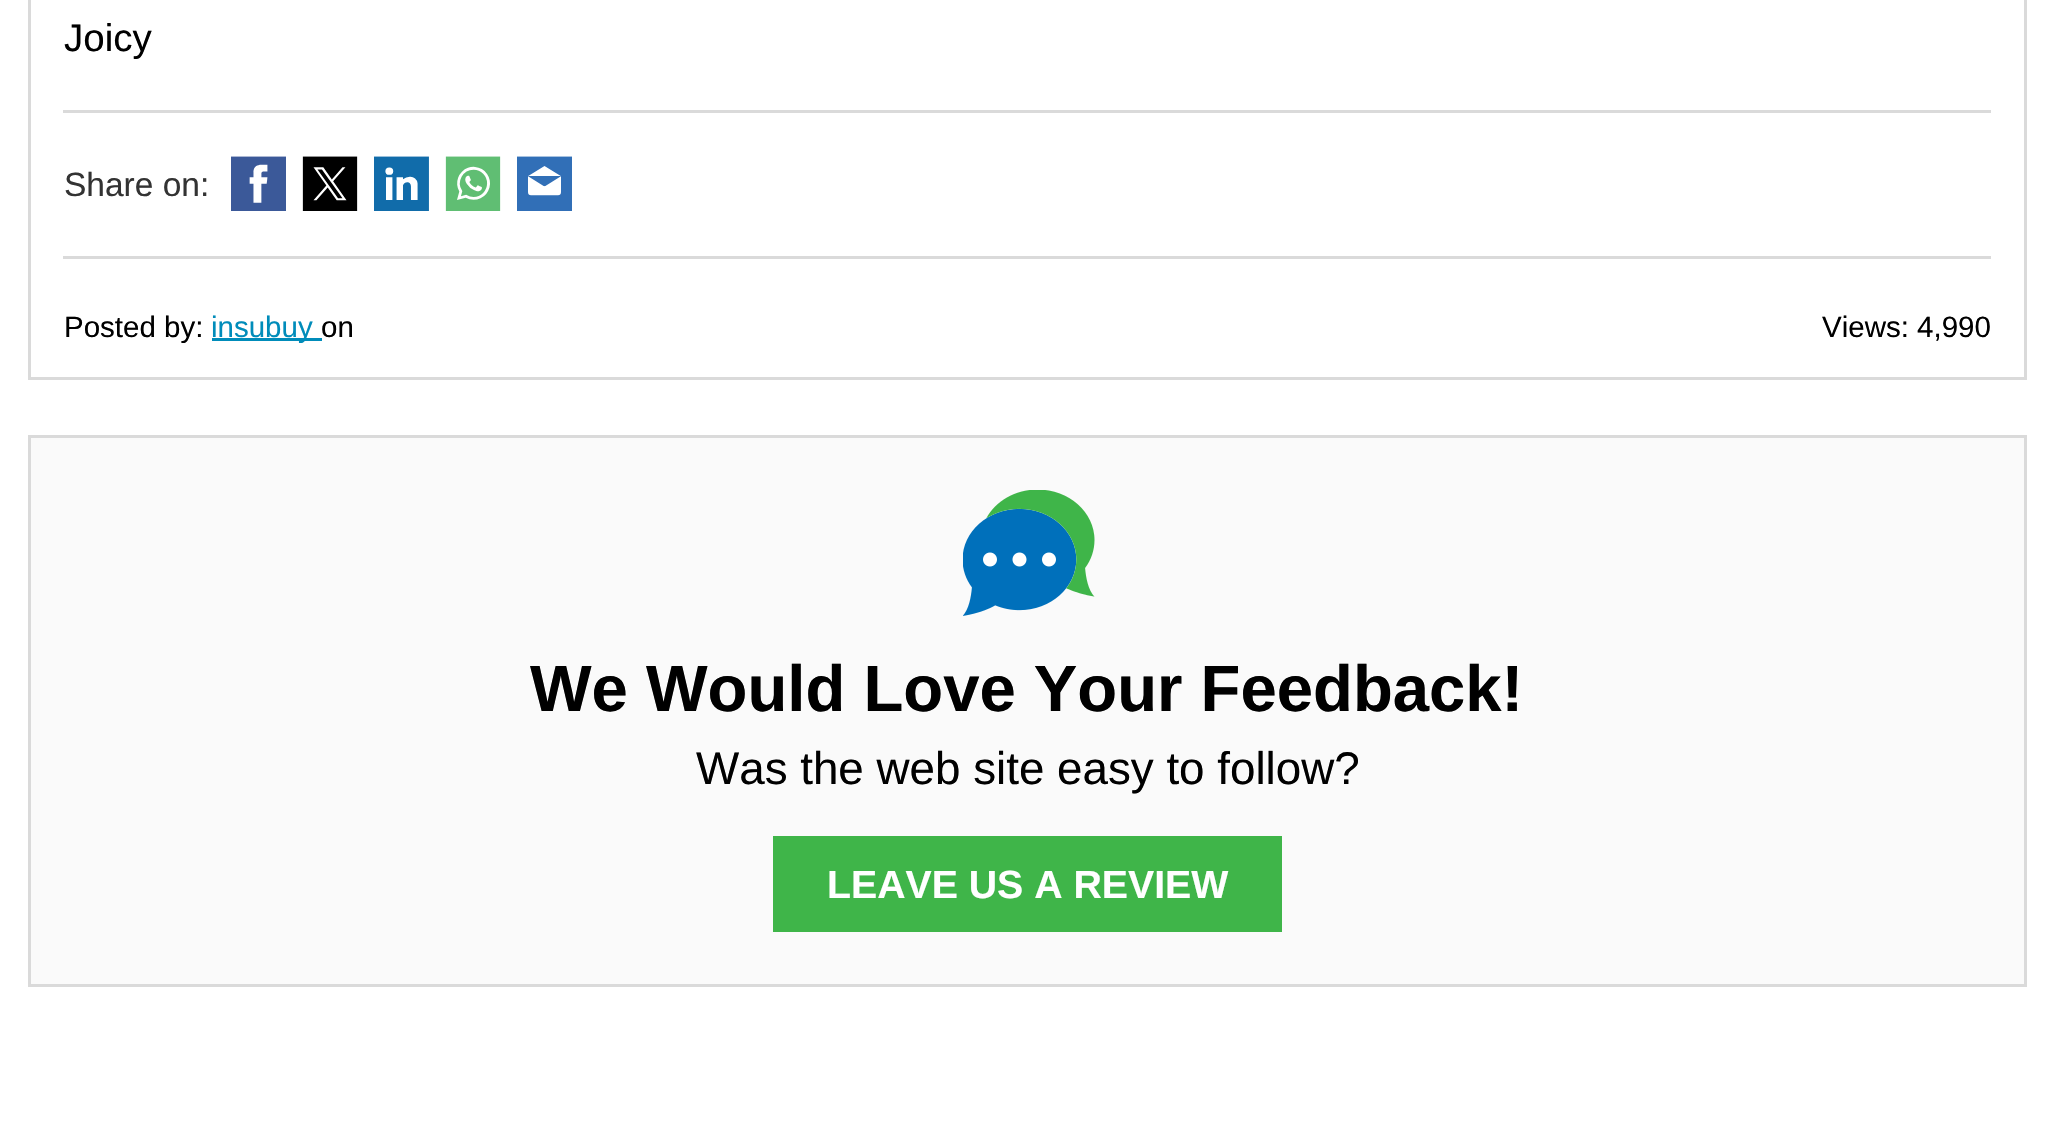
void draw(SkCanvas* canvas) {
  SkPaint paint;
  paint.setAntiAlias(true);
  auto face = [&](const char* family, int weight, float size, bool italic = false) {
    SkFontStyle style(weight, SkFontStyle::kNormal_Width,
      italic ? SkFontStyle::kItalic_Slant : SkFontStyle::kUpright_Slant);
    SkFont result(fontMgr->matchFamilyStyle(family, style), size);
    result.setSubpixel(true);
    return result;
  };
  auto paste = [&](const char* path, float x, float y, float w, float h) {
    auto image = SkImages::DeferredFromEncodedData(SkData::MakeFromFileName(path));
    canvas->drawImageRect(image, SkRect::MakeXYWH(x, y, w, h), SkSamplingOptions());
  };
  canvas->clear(0xffffffff);
  paint.setStroke(true);
  paint.setStrokeWidth(3);
  paint.setColor(0xffdadada);
  canvas->drawRect(SkRect::MakeXYWH(29.5f, -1.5f, 1996, 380), paint);
  paint.setStroke(false);
  canvas->drawRect(SkRect::MakeXYWH(63, 110, 1928, 3), paint);
  paste("img/1.png", 231, 156, 55, 55);
  paste("img/2.png", 302, 156, 56, 55);
  paste("img/3.png", 374, 156, 55, 55);
  paste("img/4.png", 445, 156, 56, 55);
  paste("img/5.png", 517, 156, 55, 55);
  canvas->drawRect(SkRect::MakeXYWH(63, 256, 1928, 3), paint);
  paint.setColor(0xff008cba);
  canvas->drawRect(SkRect::MakeXYWH(212, 338, 110, 3), paint);
  paint.setColor(0xfffafafa);
  canvas->drawRect(SkRect::MakeXYWH(29.5f, 436.5f, 1996, 549), paint);
  paint.setStroke(true);
  paint.setColor(0xffdadada);
  canvas->drawRect(SkRect::MakeXYWH(29.5f, 436.5f, 1996, 549), paint);
  paste("img/6.png", 963, 490, 132, 126);
  paint.setStroke(false);
  paint.setColor(0xff3fb549);
  canvas->drawRect(SkRect::MakeXYWH(773, 836, 509, 96), paint);
  auto f0 = face("Liberation Sans", 400, 38.5f);
  paint.setColor(0xff000000);
  canvas->drawString("Joicy", 64, 51, f0, paint);
  auto f1 = face("Liberation Sans", 400, 33.5f);
  paint.setColor(0xff333333);
  canvas->drawString("Share on:", 64, 196, f1, paint);
  auto f2 = face("Liberation Sans", 400, 29.5f);
  paint.setColor(0xff000000);
  canvas->drawString("Posted by:", 64, 337, f2, paint);
  paint.setColor(0xff008cba);
  canvas->drawString("insubuy", 211, 337, f2, paint);
  paint.setColor(0xff000000);
  canvas->drawString("on", 321, 337, f2, paint);
  canvas->drawString("Views: 4,990", 1822, 337, f2, paint);
  auto f3 = face("Liberation Sans", 700, 65.25f);
  canvas->drawString("We Would Love Your Feedback!", 530, 711, f3, paint);
  auto f4 = face("Liberation Sans", 400, 45.75f);
  canvas->drawString("Was the web site easy to follow?", 696, 784, f4, paint);
  auto f5 = face("Liberation Sans", 700, 39.25f);
  paint.setColor(0xffffffff);
  canvas->drawString("LEAVE US A REVIEW", 827, 898, f5, paint);
}
